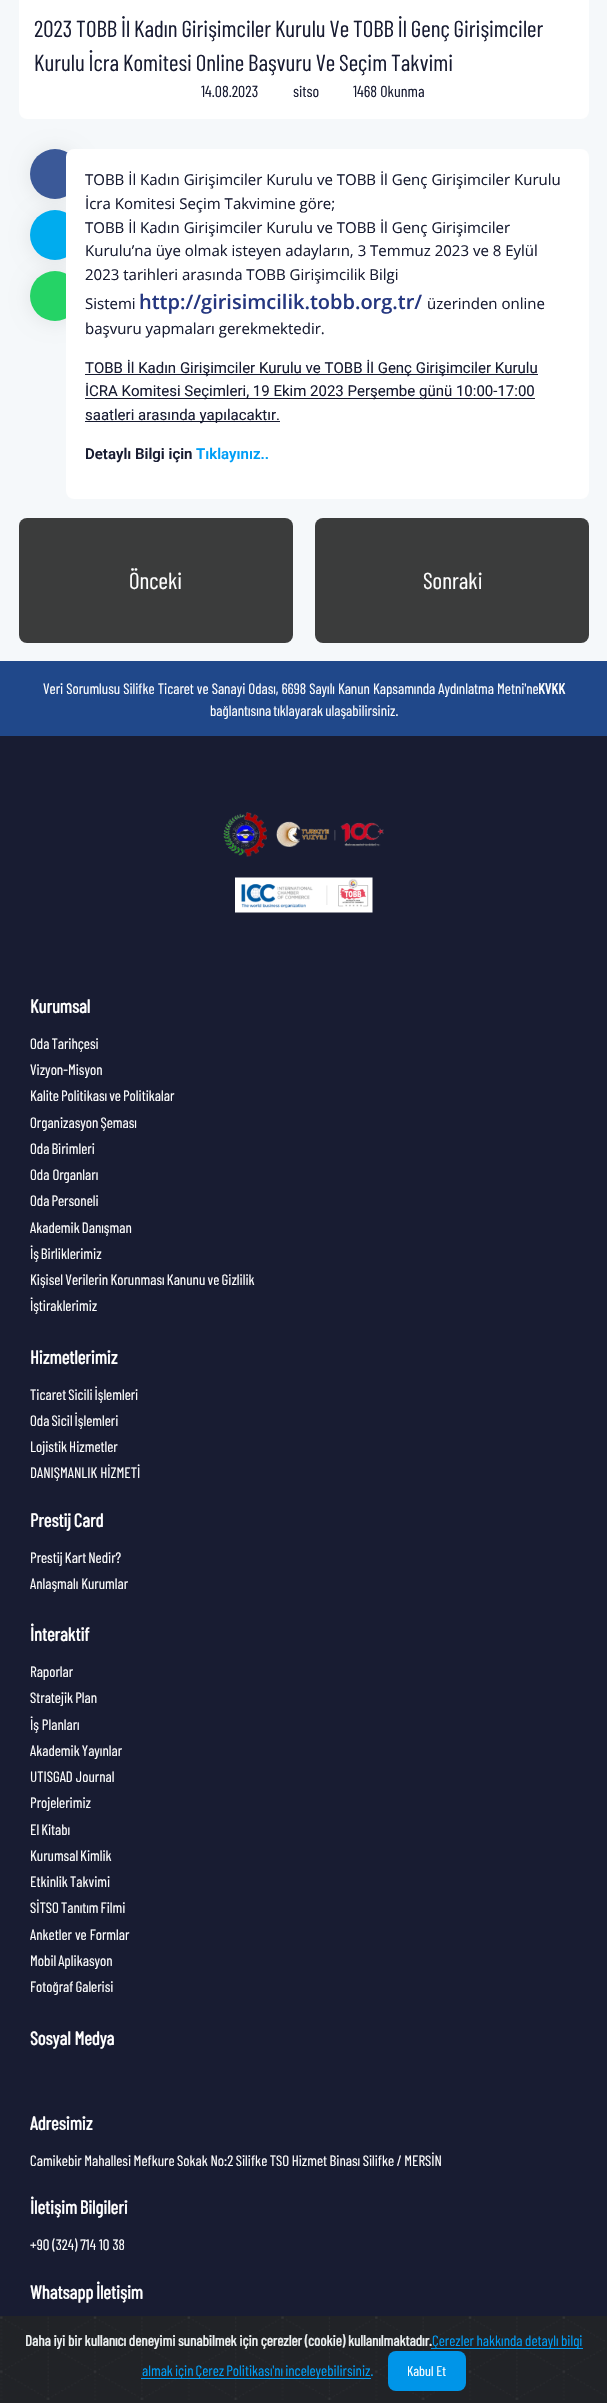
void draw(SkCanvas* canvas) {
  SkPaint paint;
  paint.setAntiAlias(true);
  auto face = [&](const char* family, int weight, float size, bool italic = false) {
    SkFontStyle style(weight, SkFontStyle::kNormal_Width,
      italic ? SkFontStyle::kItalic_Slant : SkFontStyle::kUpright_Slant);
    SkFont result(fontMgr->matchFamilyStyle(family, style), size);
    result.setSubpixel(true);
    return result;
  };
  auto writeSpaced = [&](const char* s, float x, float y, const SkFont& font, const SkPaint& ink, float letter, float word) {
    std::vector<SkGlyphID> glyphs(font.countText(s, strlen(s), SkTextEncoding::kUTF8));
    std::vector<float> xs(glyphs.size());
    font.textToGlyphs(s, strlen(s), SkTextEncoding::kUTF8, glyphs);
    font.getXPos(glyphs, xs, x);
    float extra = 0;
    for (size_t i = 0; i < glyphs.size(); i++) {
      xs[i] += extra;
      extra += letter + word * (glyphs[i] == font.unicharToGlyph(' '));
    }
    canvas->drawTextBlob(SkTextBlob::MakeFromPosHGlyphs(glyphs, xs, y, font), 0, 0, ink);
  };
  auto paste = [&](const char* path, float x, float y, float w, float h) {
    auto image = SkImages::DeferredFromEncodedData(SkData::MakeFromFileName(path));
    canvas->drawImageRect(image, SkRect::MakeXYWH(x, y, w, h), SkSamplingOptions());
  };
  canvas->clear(0xfff5f8fa);
  paint.setColor(0xffffffff);
  canvas->drawRoundRect(SkRect::MakeXYWH(19, -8, 570, 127), 8, 8, paint);
  paint.setColor(0x0d000000);
  paint.setMaskFilter(SkMaskFilter::MakeBlur(kNormal_SkBlurStyle, 7.5f));
  canvas->drawRoundRect(SkRect::MakeXYWH(26, 146, 58, 58), 29, 29, paint);
  paint.setMaskFilter(nullptr);
  paint.setColor(0xff3b5998);
  canvas->drawCircle(55, 174, 25, paint);
  paint.setColor(0x0d000000);
  paint.setMaskFilter(SkMaskFilter::MakeBlur(kNormal_SkBlurStyle, 7.5f));
  canvas->drawRoundRect(SkRect::MakeXYWH(26, 208, 58, 57), 28.5f, 28.5f, paint);
  paint.setMaskFilter(nullptr);
  paint.setColor(0xff00acee);
  canvas->drawCircle(55, 235, 25, paint);
  paint.setColor(0x0d000000);
  paint.setMaskFilter(SkMaskFilter::MakeBlur(kNormal_SkBlurStyle, 7.5f));
  canvas->drawRoundRect(SkRect::MakeXYWH(26, 269, 58, 57), 28.5f, 28.5f, paint);
  paint.setMaskFilter(nullptr);
  paint.setColor(0xff25d366);
  canvas->drawCircle(55, 296, 25, paint);
  paint.setColor(0xffffffff);
  canvas->drawRoundRect(SkRect::MakeXYWH(66, 149, 523, 350), 8, 8, paint);
  {
    const struct { float x, y, w, h; SkColor color; } items[] = {
      {85, 374, 453, 1, 0xff181c32},
      {85, 398, 450, 1, 0xff181c32},
      {85, 421, 195, 1, 0xff181c32},
    };
    for (auto [x, y, w, h, color] : items) {
      paint.setColor(color);
      canvas->drawRect(SkRect::MakeXYWH(x, y, w, h), paint);
    }
  }
  paint.setColor(0xff3b3c3c);
  canvas->drawRoundRect(SkRect::MakeXYWH(19, 518, 274, 125), 8, 8, paint);
  canvas->drawRoundRect(SkRect::MakeXYWH(315, 518, 274, 125), 8, 8, paint);
  paint.setColor(0xff20488a);
  canvas->drawRect(SkRect::MakeXYWH(0, 661, 607, 75), paint);
  paint.setColor(0xff181c32);
  canvas->drawRect(SkRect::MakeXYWH(0, 736, 607, 1580), paint);
  paste("img/1.png", 223, 812, 161, 45);
  paste("img/2.png", 235, 877, 138, 36);
  paint.setColor(0xff212327);
  canvas->drawRect(SkRect::MakeXYWH(0, 2316, 607, 87), paint);
  paste("img/3.png", 0, 2316, 605, 84);
  paint.setColor(0xff009ef7);
  canvas->drawRect(SkRect::MakeXYWH(141, 2378, 230, 1), paint);
  paint.setColor(0xff0095e8);
  canvas->drawRoundRect(SkRect::MakeXYWH(388, 2351, 78, 40), 8, 8, paint);
  auto f0 = face("Barlow Condensed", 400, 23.1f);
  paint.setColor(0xff181c32);
  writeSpaced("2023 TOBB İl Kadın Girişimciler Kurulu Ve TOBB İl Genç Girişimciler", 34, 37, f0, paint, 0, -0.75f);
  writeSpaced("Kurulu İcra Komitesi Online Başvuru Ve Seçim Takvimi", 34, 71, f0, paint, 0, -0.75f);
  auto f1 = face("Barlow Condensed", 400, 16);
  {
    const struct { const char* s; float x, y; } items[] = {
      {"14.08.2023", 201, 97},
      {"sitso", 293, 97},
      {"1468 Okunma", 353, 97},
    };
    for (auto [s, x, y] : items) {
      canvas->drawString(s, x, y, f1, paint);
    }
  }
  auto f2 = face("Open Sans", 400, 15);
  {
    const struct { const char* s; float x, y; } items[] = {
      {"TOBB İl Kadın Girişimciler Kurulu ve TOBB İl Genç Girişimciler Kurulu", 85, 185},
      {"İcra Komitesi Seçim Takvimine göre;", 85, 209},
      {"TOBB İl Kadın Girişimciler Kurulu ve TOBB İl Genç Girişimciler", 85, 233},
      {"Kurulu’na üye olmak isteyen adayların, 3 Temmuz 2023 ve 8 Eylül", 85, 256},
      {"2023 tarihleri arasında TOBB Girişimcilik Bilgi", 85, 280},
      {"Sistemi", 85, 309},
    };
    for (auto [s, x, y] : items) {
      canvas->drawString(s, x, y, f2, paint);
    }
  }
  auto f3 = face("Open Sans", 600, 20);
  paint.setColor(0xff253780);
  canvas->drawString("http://girisimcilik.tobb.org.tr/", 139, 309, f3, paint);
  paint.setColor(0xff181c32);
  canvas->drawString("üzerinden online", 427, 309, f2, paint);
  canvas->drawString("başvuru yapmaları gerekmektedir.", 85, 334, f2, paint);
  auto f4 = face("Roboto", 400, 15);
  {
    const struct { const char* s; float x, y; } items[] = {
      {"TOBB İl Kadın Girişimciler Kurulu ve TOBB İl Genç Girişimciler Kurulu", 85, 373},
      {"İCRA Komitesi Seçimleri, 19 Ekim 2023 Perşembe günü 10:00-17:00", 85, 396},
      {"saatleri arasında yapılacaktır.", 85, 420},
    };
    for (auto [s, x, y] : items) {
      canvas->drawString(s, x, y, f4, paint);
    }
  }
  auto f5 = face("Roboto", 600, 15);
  canvas->drawString("Detaylı Bilgi için", 85, 459, f5, paint);
  paint.setColor(0xff009ef7);
  canvas->drawString("Tıklayınız..", 196, 459, f5, paint);
  paint.setColor(0xffffffff);
  canvas->drawString("Önceki", 129, 589, f0, paint);
  canvas->drawString("Sonraki", 423, 589, f0, paint);
  auto f6 = face("Barlow Condensed", 400, 15);
  canvas->drawString("Veri Sorumlusu Silifke Ticaret ve Sanayi Odası, 6698 Sayılı Kanun Kapsamında Aydınlatma Metni'ne", 43, 694, f6, paint);
  auto f7 = face("Barlow Condensed", 700, 15);
  canvas->drawString("KVKK", 538, 694, f7, paint);
  writeSpaced("bağlantısına tıklayarak ulaşabilirsiniz.", 210, 716, f6, paint, 0, -1);
  auto f8 = face("Barlow Condensed", 700, 18.75f);
  canvas->drawString("Kurumsal", 30, 1013, f8, paint);
  writeSpaced("Oda Tarihçesi", 30, 1049, f6, paint, 0, -1);
  canvas->drawString("Vizyon-Misyon", 30, 1075, f6, paint);
  {
    const struct { const char* s; float x, y; } items[] = {
      {"Kalite Politikası ve Politikalar", 30, 1101},
      {"Organizasyon Şeması", 30, 1128},
      {"Oda Birimleri", 30, 1154},
    };
    for (auto [s, x, y] : items) {
      writeSpaced(s, x, y, f6, paint, 0, -1);
    }
  }
  canvas->drawString("Oda Organları", 30, 1180, f6, paint);
  {
    const struct { const char* s; float x, y; } items[] = {
      {"Oda Personeli", 30, 1206},
      {"Akademik Danışman", 30, 1233},
      {"İş Birliklerimiz", 30, 1259},
    };
    for (auto [s, x, y] : items) {
      writeSpaced(s, x, y, f6, paint, 0, -1);
    }
  }
  writeSpaced("Kişisel Verilerin Korunması Kanunu ve Gizlilik", 30, 1285, f6, paint, 0, -0.75f);
  canvas->drawString("İştiraklerimiz", 30, 1311, f6, paint);
  canvas->drawString("Hizmetlerimiz", 30, 1364, f8, paint);
  {
    const struct { const char* s; float x, y; } items[] = {
      {"Ticaret Sicili İşlemleri", 30, 1400},
      {"Oda Sicil İşlemleri", 30, 1426},
      {"Lojistik Hizmetler", 30, 1452},
    };
    for (auto [s, x, y] : items) {
      writeSpaced(s, x, y, f6, paint, 0, -1);
    }
  }
  canvas->drawString("DANIŞMANLIK HİZMETİ", 30, 1478, f6, paint);
  writeSpaced("Prestij Card", 30, 1527, f8, paint, 0, -1);
  writeSpaced("Prestij Kart Nedir?", 30, 1563, f6, paint, 0, -1);
  canvas->drawString("Anlaşmalı Kurumlar", 30, 1589, f6, paint);
  canvas->drawString("İnteraktif", 30, 1641, f8, paint);
  canvas->drawString("Raporlar", 30, 1677, f6, paint);
  writeSpaced("Stratejik Plan", 30, 1703, f6, paint, 0, -1);
  canvas->drawString("İş Planları", 30, 1730, f6, paint);
  writeSpaced("Akademik Yayınlar", 30, 1756, f6, paint, 0, -1);
  canvas->drawString("UTISGAD Journal", 30, 1782, f6, paint);
  canvas->drawString("Projelerimiz", 30, 1808, f6, paint);
  {
    const struct { const char* s; float x, y; } items[] = {
      {"El Kitabı", 30, 1835},
      {"Kurumsal Kimlik", 30, 1861},
      {"Etkinlik Takvimi", 30, 1887},
      {"SİTSO Tanıtım Filmi", 30, 1913},
    };
    for (auto [s, x, y] : items) {
      writeSpaced(s, x, y, f6, paint, 0, -1);
    }
  }
  canvas->drawString("Anketler ve Formlar", 30, 1940, f6, paint);
  writeSpaced("Mobil Aplikasyon", 30, 1966, f6, paint, 0, -1);
  writeSpaced("Fotoğraf Galerisi", 30, 1992, f6, paint, 0, -1);
  canvas->drawString("Sosyal Medya", 30, 2045, f8, paint);
  canvas->drawString("Adresimiz", 30, 2130, f8, paint);
  writeSpaced("Camikebir Mahallesi Mefkure Sokak No:2 Silifke TSO Hizmet Binası Silifke / MERSİN", 30, 2166, f6, paint, 0, -0.5f);
  writeSpaced("İletişim Bilgileri", 30, 2214, f8, paint, 0, -1);
  canvas->drawString("+90 (324) 714 10 38", 30, 2250, f6, paint);
  writeSpaced("Whatsapp İletişim", 30, 2299, f8, paint, 0, -1);
  paint.setColor(0xffecf0f1);
  writeSpaced("Daha iyi bir kullanıcı deneyimi sunabilmek için çerezler (cookie) kullanılmaktadır.", 25, 2346, f7, paint, 0, -0.25f);
  paint.setColor(0xff009ef7);
  canvas->drawRect(SkRect::MakeXYWH(431, 2348, 152, 1), paint);
  writeSpaced("Çerezler hakkında detaylı bilgi", 432, 2346, f6, paint, 0, -0.5f);
  writeSpaced("almak için Çerez Politikası'nı inceleyebilirsiniz.", 142, 2376, f6, paint, 0, -1);
  auto f9 = face("Barlow Condensed", 400, 14);
  paint.setColor(0xffffffff);
  canvas->drawString("Kabul Et", 407, 2376, f9, paint);
}
